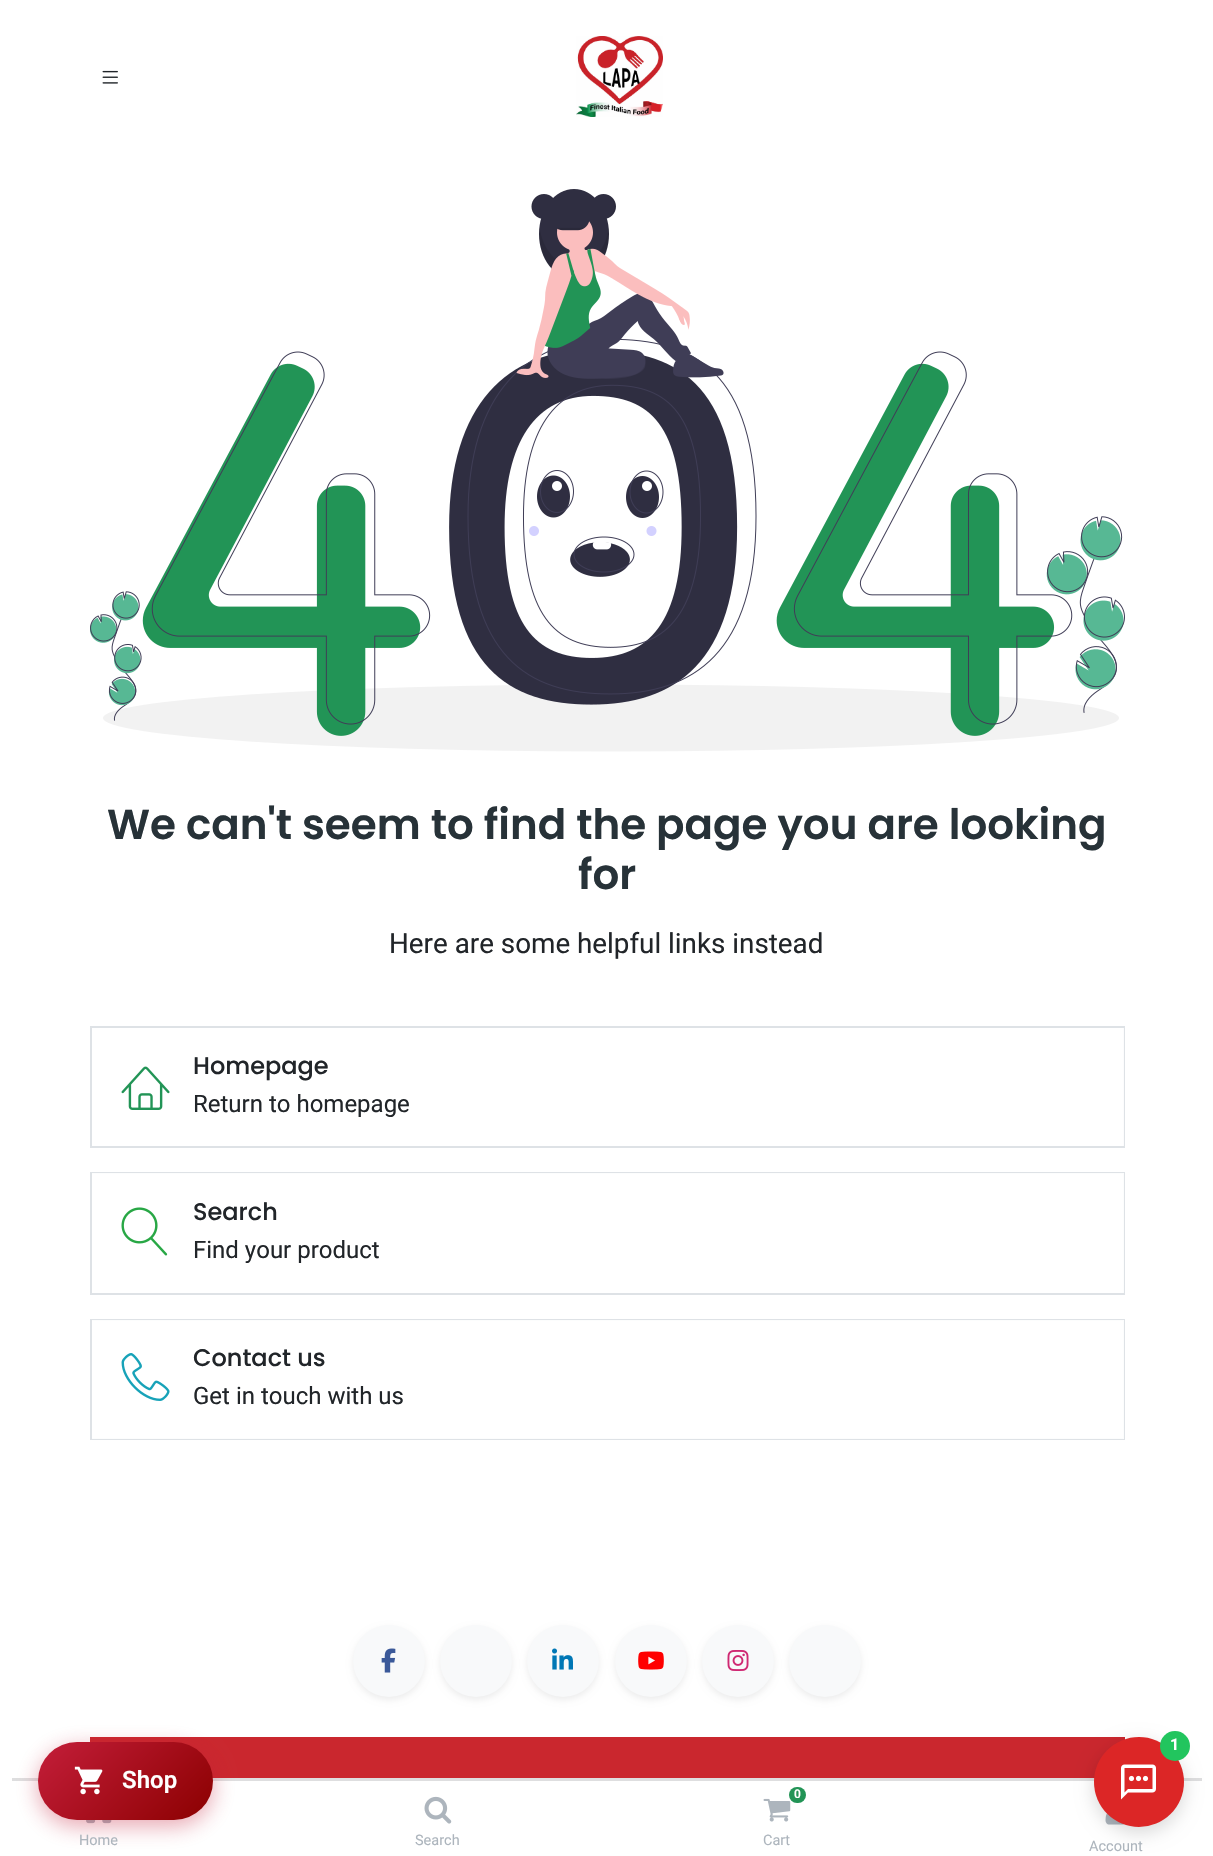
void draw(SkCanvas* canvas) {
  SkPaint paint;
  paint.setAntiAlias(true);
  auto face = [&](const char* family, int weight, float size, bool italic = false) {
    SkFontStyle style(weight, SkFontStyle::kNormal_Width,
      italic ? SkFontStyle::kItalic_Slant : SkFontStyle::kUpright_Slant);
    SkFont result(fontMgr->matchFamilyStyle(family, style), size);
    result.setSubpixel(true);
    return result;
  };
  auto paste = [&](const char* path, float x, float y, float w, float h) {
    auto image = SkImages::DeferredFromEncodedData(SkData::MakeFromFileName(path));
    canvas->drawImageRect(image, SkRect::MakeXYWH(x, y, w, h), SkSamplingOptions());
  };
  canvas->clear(0xffffffff);
  paste("img/1.png", 102, 70, 16, 14);
  paste("img/2.png", 576, 36, 87, 81);
  paste("img/3.png", 90, 189, 1035, 563);
  paint.setStroke(true);
  paint.setStrokeWidth(2);
  paint.setColor(0xffdee2e6);
  canvas->drawRect(SkRect::MakeXYWH(91, 1027, 1033, 120), paint);
  paint.setStroke(false);
  paint.setColor(0xe6ffffff);
  canvas->drawRect(SkRect::MakeXYWH(1123, 1028, 1, 118), paint);
  paste("img/4.png", 121, 1066, 49, 44);
  paint.setStroke(true);
  paint.setColor(0xffdee2e6);
  canvas->drawRect(SkRect::MakeXYWH(91, 1173, 1033, 121), paint);
  paint.setStroke(false);
  paint.setColor(0xe6ffffff);
  canvas->drawRect(SkRect::MakeXYWH(92, 1173, 1032, 120), paint);
  paste("img/5.png", 121, 1207, 47, 49);
  paint.setStroke(true);
  paint.setColor(0xffdee2e6);
  canvas->drawRect(SkRect::MakeXYWH(91, 1320, 1033, 119), paint);
  paint.setStroke(false);
  paint.setColor(0xe6ffffff);
  canvas->drawRect(SkRect::MakeXYWH(92, 1320, 1032, 119), paint);
  paste("img/6.png", 121, 1353, 49, 48);
  paint.setColor(0x12000000);
  paint.setMaskFilter(SkMaskFilter::MakeBlur(kNormal_SkBlurStyle, 3));
  canvas->drawRoundRect(SkRect::MakeXYWH(353, 1628, 72, 72), 36, 36, paint);
  paint.setMaskFilter(nullptr);
  paint.setColor(0xfff8f9fa);
  canvas->drawCircle(389, 1661, 36, paint);
  paste("img/7.png", 381, 1648, 15, 25);
  paint.setColor(0x12000000);
  paint.setMaskFilter(SkMaskFilter::MakeBlur(kNormal_SkBlurStyle, 3));
  canvas->drawRoundRect(SkRect::MakeXYWH(440, 1628, 72, 72), 36, 36, paint);
  paint.setMaskFilter(nullptr);
  paint.setColor(0xfff8f9fa);
  canvas->drawCircle(476, 1661, 36, paint);
  paint.setColor(0x12000000);
  paint.setMaskFilter(SkMaskFilter::MakeBlur(kNormal_SkBlurStyle, 3));
  canvas->drawRoundRect(SkRect::MakeXYWH(527, 1628, 72, 72), 36, 36, paint);
  paint.setMaskFilter(nullptr);
  paint.setColor(0xfff8f9fa);
  canvas->drawCircle(563, 1661, 36, paint);
  paste("img/8.png", 552, 1648, 21, 22);
  paint.setColor(0x12000000);
  paint.setMaskFilter(SkMaskFilter::MakeBlur(kNormal_SkBlurStyle, 3));
  canvas->drawRoundRect(SkRect::MakeXYWH(615, 1628, 72, 72), 36, 36, paint);
  paint.setMaskFilter(nullptr);
  paint.setColor(0xfff8f9fa);
  canvas->drawCircle(651, 1661, 36, paint);
  paste("img/9.png", 638, 1651, 26, 19);
  paint.setColor(0x12000000);
  paint.setMaskFilter(SkMaskFilter::MakeBlur(kNormal_SkBlurStyle, 3));
  canvas->drawRoundRect(SkRect::MakeXYWH(702, 1628, 72, 72), 36, 36, paint);
  paint.setMaskFilter(nullptr);
  paint.setColor(0xfff8f9fa);
  canvas->drawCircle(738, 1661, 36, paint);
  paste("img/10.png", 727, 1650, 22, 21);
  paint.setColor(0x12000000);
  paint.setMaskFilter(SkMaskFilter::MakeBlur(kNormal_SkBlurStyle, 3));
  canvas->drawRoundRect(SkRect::MakeXYWH(789, 1628, 72, 72), 36, 36, paint);
  paint.setMaskFilter(nullptr);
  paint.setColor(0xfff8f9fa);
  canvas->drawCircle(825, 1661, 36, paint);
  paint.setColor(0xffca272e);
  canvas->drawRect(SkRect::MakeXYWH(90, 1737, 1035, 41), paint);
  paint.setColor(0xffdededf);
  canvas->drawRect(SkRect::MakeXYWH(12, 1778, 1190, 3), paint);
  paste("img/11.png", 86, 1820, 26, 4);
  paste("img/12.png", 424, 1796, 28, 28);
  paste("img/13.png", 763, 1798, 28, 24);
  paint.setColor(0xff229456);
  canvas->drawRoundRect(SkRect::MakeXYWH(789, 1787, 17, 16), 8, 8, paint);
  paste("img/14.png", 1105, 1813, 20, 12);
  paint.setColor(0x26000000);
  paint.setMaskFilter(SkMaskFilter::MakeBlur(kNormal_SkBlurStyle, 9));
  canvas->drawRoundRect(SkRect::MakeXYWH(1094, 1743, 90, 90), 45, 45, paint);
  paint.setMaskFilter(nullptr);
  paint.setColor(0xffdc2626);
  canvas->drawCircle(1139, 1782, 45, paint);
  paint.setColor(0xff22c55e);
  canvas->drawCircle(1175, 1746, 15, paint);
  paste("img/15.png", 1121, 1764, 35, 36);
  paint.setColor(0x66c41e3a);
  paint.setMaskFilter(SkMaskFilter::MakeBlur(kNormal_SkBlurStyle, 11));
  canvas->drawRoundRect(SkRect::MakeXYWH(38, 1748, 175, 78), 39, 39, paint);
  paint.setMaskFilter(nullptr);
  {
    const SkColor colors[] = {0xffc41e3a, 0xff8b0000};
    const float stops[] = {0, 1};
    const SkPoint ends[] = {{62, 1717}, {189, 1844}};
    paint.setShader(SkGradientShader::MakeLinear(ends, colors, stops, 2, SkTileMode::kClamp));
    paint.setAlpha(255);
  }
  canvas->drawRoundRect(SkRect::MakeXYWH(38, 1742, 175, 78), 39, 39, paint);
  paste("img/16.png", 74, 1766, 29, 29);
  auto f0 = face("Poppins", 600, 42);
  paint.setShader(nullptr);
  paint.setColor(0xff273238);
  canvas->drawString("We can't seem to find the page you are looking", 107, 839, f0, paint);
  canvas->drawString("for", 578, 889, f0, paint);
  auto f1 = face("Roboto", 400, 27.8f);
  paint.setColor(0xff212529);
  canvas->drawString("Here are some helpful links instead", 389, 953, f1, paint);
  auto f2 = face("Poppins", 500, 24);
  canvas->drawString("Homepage", 193, 1074, f2, paint);
  auto f3 = face("Roboto", 400, 24);
  canvas->drawString("Return to homepage", 193, 1112, f3, paint);
  canvas->drawString("Search", 193, 1220, f2, paint);
  canvas->drawString("Find your product", 193, 1258, f3, paint);
  canvas->drawString("Contact us", 193, 1366, f2, paint);
  canvas->drawString("Get in touch with us", 193, 1404, f3, paint);
  auto f4 = face("Roboto", 400, 14.5f);
  paint.setColor(0xffadb5bd);
  canvas->drawString("Home", 79, 1845, f4, paint);
  canvas->drawString("Search", 415, 1845, f4, paint);
  auto f5 = face("Roboto", 600, 12);
  paint.setColor(0xffffffff);
  canvas->drawString("0", 794, 1798, f5, paint);
  paint.setColor(0xffadb5bd);
  canvas->drawString("Cart", 763, 1845, f4, paint);
  canvas->drawString("Account", 1089, 1851, f4, paint);
  auto f6 = face("Roboto", 700, 16);
  paint.setColor(0xffffffff);
  canvas->drawString("1", 1170, 1750, f6, paint);
  auto f7 = face("Roboto", 600, 24);
  canvas->drawString("Shop", 122, 1788, f7, paint);
}
